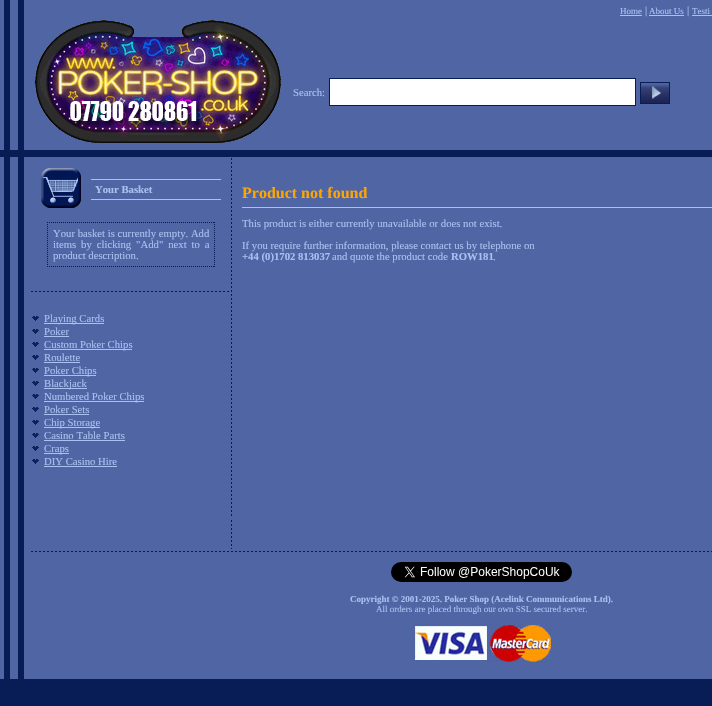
void draw(SkCanvas* canvas) {
  SkPaint paint;
  paint.setAntiAlias(true);
  auto face = [&](const char* family, int weight, float size, bool italic = false) {
    SkFontStyle style(weight, SkFontStyle::kNormal_Width,
      italic ? SkFontStyle::kItalic_Slant : SkFontStyle::kUpright_Slant);
    SkFont result(fontMgr->matchFamilyStyle(family, style), size);
    result.setSubpixel(true);
    return result;
  };
  auto writeSpaced = [&](const char* s, float x, float y, const SkFont& font, const SkPaint& ink, float letter, float word) {
    std::vector<SkGlyphID> glyphs(font.countText(s, strlen(s), SkTextEncoding::kUTF8));
    std::vector<float> xs(glyphs.size());
    font.textToGlyphs(s, strlen(s), SkTextEncoding::kUTF8, glyphs);
    font.getXPos(glyphs, xs, x);
    float extra = 0;
    for (size_t i = 0; i < glyphs.size(); i++) {
      xs[i] += extra;
      extra += letter + word * (glyphs[i] == font.unicharToGlyph(' '));
    }
    canvas->drawTextBlob(SkTextBlob::MakeFromPosHGlyphs(glyphs, xs, y, font), 0, 0, ink);
  };
  auto paste = [&](const char* path, float x, float y, float w, float h) {
    auto image = SkImages::DeferredFromEncodedData(SkData::MakeFromFileName(path));
    canvas->drawImageRect(image, SkRect::MakeXYWH(x, y, w, h), SkSamplingOptions());
  };
  auto shape = [&](const char* data, bool evenOdd = false) {
    SkPath result = *SkParsePath::FromSVGString(data);
    if (evenOdd) result.setFillType(SkPathFillType::kEvenOdd);
    return result;
  };
  canvas->clear(0xff081c56);
  paint.setColor(0xff4f65a4);
  canvas->drawRect(SkRect::MakeXYWH(0, 0, 712, 679), paint);
  paste("img/1.png", 4, 0, 20, 150);
  {
    const struct { float x, y, w, h; SkColor color; } items[] = {
      {620, 15, 22, 1, 0xffa8c1f0},
      {649, 15, 35, 1, 0xffa8c1f0},
      {692, 15, 20, 1, 0xffa8c1f0},
    };
    for (auto [x, y, w, h, color] : items) {
      paint.setColor(color);
      canvas->drawRect(SkRect::MakeXYWH(x, y, w, h), paint);
    }
  }
  paste("img/2.png", 35, 20, 246, 123);
  paint.setColor(0xffffffff);
  canvas->drawRect(SkRect::MakeXYWH(329.5f, 78.5f, 306, 27), paint);
  paint.setStroke(true);
  paint.setStrokeWidth(1);
  paint.setColor(0xff081c56);
  canvas->drawRect(SkRect::MakeXYWH(329.5f, 78.5f, 306, 27), paint);
  canvas->drawRect(SkRect::MakeXYWH(640.5f, 82.5f, 29, 21), paint);
  paste("img/3.png", 641, 84, 28, 19);
  paint.setStroke(false);
  canvas->drawRect(SkRect::MakeXYWH(0, 150, 712, 7), paint);
  paste("img/4.png", 4, 157, 20, 362);
  paste("img/5.png", 41, 168, 40, 40);
  paint.setColor(0xffa8c1f1);
  canvas->drawRect(SkRect::MakeXYWH(91, 179, 130, 1), paint);
  canvas->drawRect(SkRect::MakeXYWH(91, 199, 130, 1), paint);
  paint.setStroke(true);
  paint.setColor(0xff081c56);
  paint.setPathEffect(SkDashPathEffect::Make({{1, 1}}, 0));
  canvas->drawPath(shape("M47 222.5H215"), paint);
  paint.setPathEffect(nullptr);
  paint.setPathEffect(SkDashPathEffect::Make({{1, 1}}, 0));
  canvas->drawPath(shape("M214.5 222V267"), paint);
  paint.setPathEffect(nullptr);
  paint.setPathEffect(SkDashPathEffect::Make({{1, 1}}, 0));
  canvas->drawPath(shape("M47 266.5H215"), paint);
  paint.setPathEffect(nullptr);
  paint.setPathEffect(SkDashPathEffect::Make({{1, 1}}, 0));
  canvas->drawPath(shape("M47.5 222V267"), paint);
  paint.setPathEffect(nullptr);
  paste("img/6.png", 31, 291, 198, 1);
  paste("img/7.png", 32, 316, 7, 5);
  paint.setStroke(false);
  paint.setColor(0xffa8c1f0);
  canvas->drawRect(SkRect::MakeXYWH(44, 323, 60, 1), paint);
  paste("img/7.png", 32, 329, 7, 5);
  canvas->drawRect(SkRect::MakeXYWH(44, 336, 25, 1), paint);
  paste("img/7.png", 32, 342, 7, 5);
  canvas->drawRect(SkRect::MakeXYWH(44, 349, 88, 1), paint);
  paste("img/7.png", 32, 355, 7, 5);
  canvas->drawRect(SkRect::MakeXYWH(44, 362, 36, 1), paint);
  paste("img/7.png", 32, 368, 7, 5);
  canvas->drawRect(SkRect::MakeXYWH(44, 375, 52, 1), paint);
  paste("img/7.png", 32, 381, 7, 5);
  canvas->drawRect(SkRect::MakeXYWH(44, 388, 43, 1), paint);
  paste("img/7.png", 32, 394, 7, 5);
  canvas->drawRect(SkRect::MakeXYWH(44, 401, 100, 1), paint);
  paste("img/7.png", 32, 407, 7, 5);
  canvas->drawRect(SkRect::MakeXYWH(44, 414, 45, 1), paint);
  paste("img/7.png", 32, 420, 7, 5);
  canvas->drawRect(SkRect::MakeXYWH(44, 427, 56, 1), paint);
  paste("img/7.png", 32, 433, 7, 5);
  canvas->drawRect(SkRect::MakeXYWH(44, 440, 81, 1), paint);
  paste("img/7.png", 32, 446, 7, 5);
  canvas->drawRect(SkRect::MakeXYWH(44, 453, 25, 1), paint);
  paste("img/7.png", 32, 459, 7, 5);
  canvas->drawRect(SkRect::MakeXYWH(44, 466, 73, 1), paint);
  paste("img/8.png", 231, 158, 1, 358);
  canvas->drawRect(SkRect::MakeXYWH(242, 207, 470, 1), paint);
  paste("img/9.png", 4, 519, 20, 31);
  paste("img/10.png", 231, 520, 1, 29);
  paste("img/11.png", 4, 550, 20, 129);
  paste("img/12.png", 31, 551, 681, 1);
  paste("img/13.png", 391, 562, 181, 20);
  paste("img/14.png", 412, 624, 139, 38);
  auto f0 = face("Liberation Serif", 400, 9);
  canvas->drawString("Home", 620, 14, f0, paint);
  auto f1 = face("Liberation Serif", 400, 10.7f);
  canvas->drawString("|", 645, 14, f1, paint);
  canvas->drawString("About Us", 649, 14, f0, paint);
  canvas->drawString("|", 687, 14, f1, paint);
  canvas->drawString("Testi", 692, 14, f0, paint);
  canvas->drawString("Search:", 293, 96, f1, paint);
  auto f2 = face("Liberation Serif", 700, 10.7f);
  canvas->drawString("Your Basket", 95, 193, f2, paint);
  canvas->drawString("Your basket is currently empty. Add", 53, 237, f1, paint);
  writeSpaced("items by clicking \"Add\" next to a", 53, 248, f1, paint, 0, 2.25f);
  {
    const struct { const char* s; float x, y; } items[] = {
      {"product description.", 53, 259},
      {"Playing Cards", 44, 322},
      {"Poker", 44, 335},
      {"Custom Poker Chips", 44, 348},
      {"Roulette", 44, 361},
      {"Poker Chips", 44, 374},
      {"Blackjack", 44, 387},
      {"Numbered Poker Chips", 44, 400},
      {"Poker Sets", 44, 413},
      {"Chip Storage", 44, 426},
      {"Casino Table Parts", 44, 439},
      {"Craps", 44, 452},
      {"DIY Casino Hire", 44, 465},
    };
    for (auto [s, x, y] : items) {
      canvas->drawString(s, x, y, f1, paint);
    }
  }
  auto f3 = face("Liberation Serif", 700, 16);
  paint.setColor(0xffffa500);
  canvas->drawString("Product not found", 242, 198, f3, paint);
  paint.setColor(0xffa8c1f0);
  canvas->drawString("This product is either currently unavailable or does not exist.", 242, 227, f1, paint);
  canvas->drawString("If you require further information, please contact us by telephone on", 242, 249, f1, paint);
  canvas->drawString("+44 (0)1702 813037", 242, 260, f2, paint);
  canvas->drawString("and quote the product code", 332, 260, f1, paint);
  canvas->drawString("ROW181", 451, 260, f2, paint);
  canvas->drawString(".", 493, 260, f1, paint);
  auto f4 = face("Liberation Serif", 700, 9);
  canvas->drawString("Copyright © 2001-2025. Poker Shop (Acelink Communications Ltd).", 350, 602, f4, paint);
  canvas->drawString("All orders are placed through our own SSL secured server.", 376, 612, f0, paint);
}
